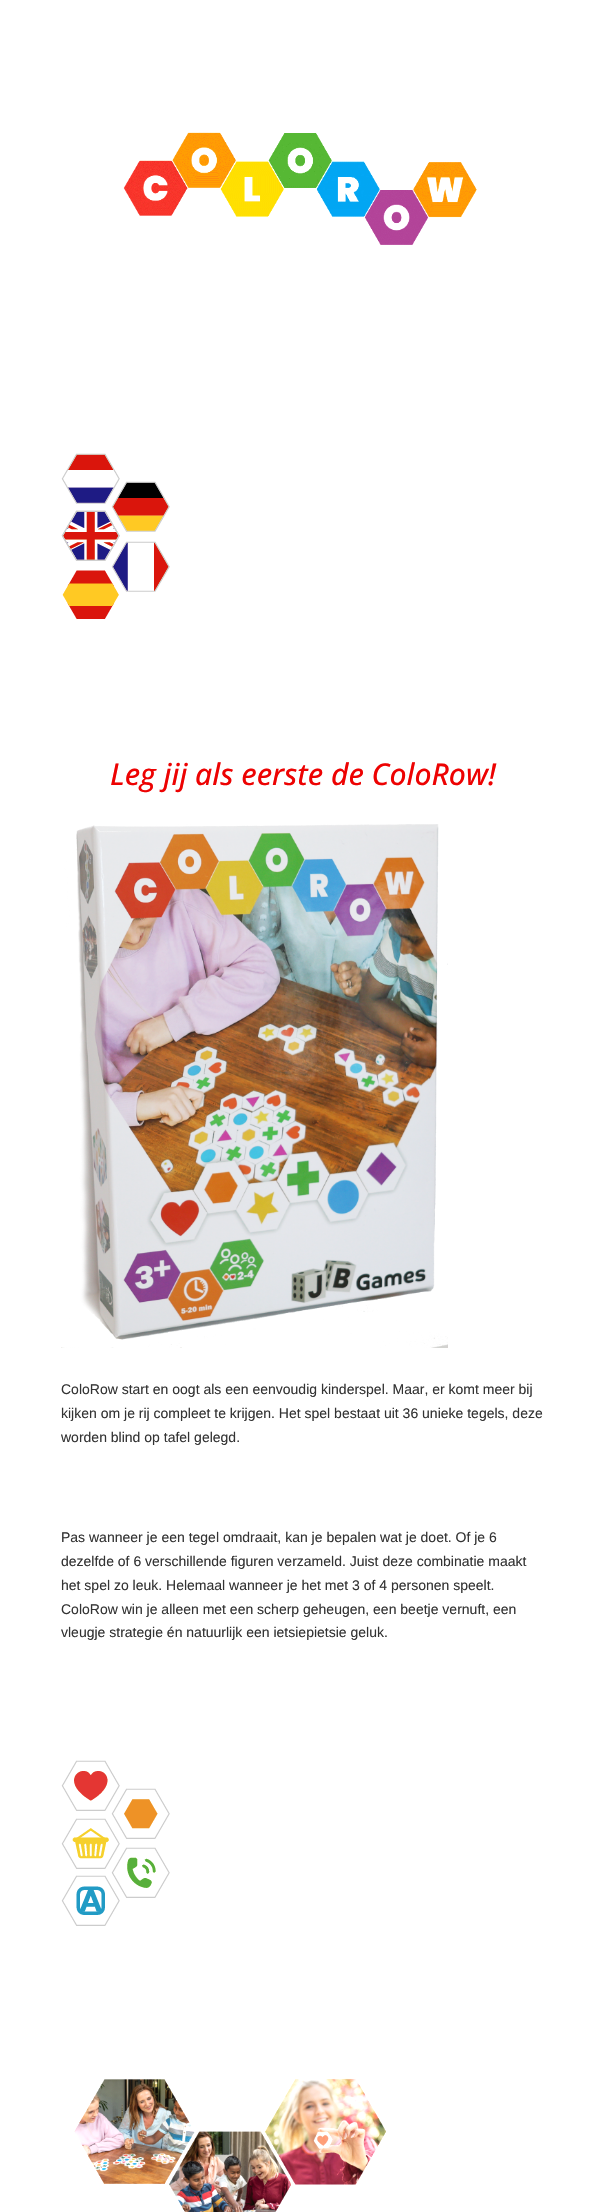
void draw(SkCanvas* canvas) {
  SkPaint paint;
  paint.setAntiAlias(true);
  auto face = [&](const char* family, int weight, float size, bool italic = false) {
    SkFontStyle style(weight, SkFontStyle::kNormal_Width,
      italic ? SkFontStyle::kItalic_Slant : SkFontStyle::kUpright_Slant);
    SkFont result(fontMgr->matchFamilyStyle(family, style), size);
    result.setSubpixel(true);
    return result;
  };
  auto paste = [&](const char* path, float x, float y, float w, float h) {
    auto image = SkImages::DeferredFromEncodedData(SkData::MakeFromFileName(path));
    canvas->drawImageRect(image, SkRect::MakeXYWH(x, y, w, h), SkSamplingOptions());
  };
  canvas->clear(0xffffffff);
  paste("img/1.png", 123, 132, 354, 113);
  paste("img/2.png", 61, 453, 59, 51);
  paste("img/3.png", 111, 481, 59, 51);
  paste("img/4.png", 61, 510, 59, 51);
  paste("img/6.png", 111, 541, 59, 51);
  paste("img/5.png", 62, 570, 57, 49);
  paste("img/7.png", 61, 824, 387, 524);
  paste("img/8.png", 61, 1760, 59, 51);
  paste("img/9.png", 111, 1788, 59, 51);
  paste("img/10.png", 61, 1818, 59, 51);
  paste("img/11.png", 111, 1847, 59, 51);
  paste("img/12.png", 61, 1875, 59, 51);
  paste("img/13.png", 74, 2078, 312, 134);
  auto f0 = face("Open Sans", 500, 30, true);
  paint.setColor(0xffed0202);
  canvas->drawString("Leg jij als eerste de ColoRow!", 110, 785, f0, paint);
  auto f1 = face("Liberation Sans", 400, 14);
  paint.setColor(0xff333333);
  {
    const struct { const char* s; float x, y; } items[] = {
      {"ColoRow start en oogt als een eenvoudig kinderspel. Maar, er komt meer bij", 61, 1394},
      {"kijken om je rij compleet te krijgen. Het spel bestaat uit 36 unieke tegels, deze", 61, 1418},
      {"worden blind op tafel gelegd.", 61, 1442},
      {"Pas wanneer je een tegel omdraait, kan je bepalen wat je doet. Of je 6", 61, 1542},
      {"dezelfde of 6 verschillende figuren verzameld. Juist deze combinatie maakt", 61, 1566},
      {"het spel zo leuk. Helemaal wanneer je het met 3 of 4 personen speelt.", 61, 1590},
      {"ColoRow win je alleen met een scherp geheugen, een beetje vernuft, een", 61, 1614},
      {"vleugje strategie én natuurlijk een ietsiepietsie geluk.", 61, 1637},
    };
    for (auto [s, x, y] : items) {
      canvas->drawString(s, x, y, f1, paint);
    }
  }
}
